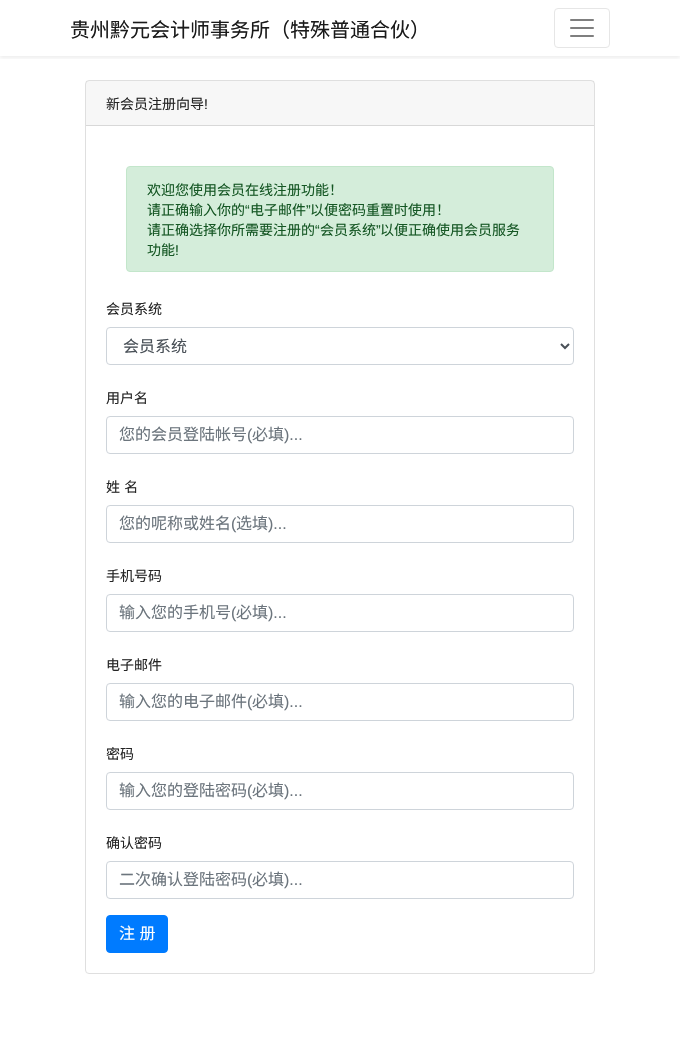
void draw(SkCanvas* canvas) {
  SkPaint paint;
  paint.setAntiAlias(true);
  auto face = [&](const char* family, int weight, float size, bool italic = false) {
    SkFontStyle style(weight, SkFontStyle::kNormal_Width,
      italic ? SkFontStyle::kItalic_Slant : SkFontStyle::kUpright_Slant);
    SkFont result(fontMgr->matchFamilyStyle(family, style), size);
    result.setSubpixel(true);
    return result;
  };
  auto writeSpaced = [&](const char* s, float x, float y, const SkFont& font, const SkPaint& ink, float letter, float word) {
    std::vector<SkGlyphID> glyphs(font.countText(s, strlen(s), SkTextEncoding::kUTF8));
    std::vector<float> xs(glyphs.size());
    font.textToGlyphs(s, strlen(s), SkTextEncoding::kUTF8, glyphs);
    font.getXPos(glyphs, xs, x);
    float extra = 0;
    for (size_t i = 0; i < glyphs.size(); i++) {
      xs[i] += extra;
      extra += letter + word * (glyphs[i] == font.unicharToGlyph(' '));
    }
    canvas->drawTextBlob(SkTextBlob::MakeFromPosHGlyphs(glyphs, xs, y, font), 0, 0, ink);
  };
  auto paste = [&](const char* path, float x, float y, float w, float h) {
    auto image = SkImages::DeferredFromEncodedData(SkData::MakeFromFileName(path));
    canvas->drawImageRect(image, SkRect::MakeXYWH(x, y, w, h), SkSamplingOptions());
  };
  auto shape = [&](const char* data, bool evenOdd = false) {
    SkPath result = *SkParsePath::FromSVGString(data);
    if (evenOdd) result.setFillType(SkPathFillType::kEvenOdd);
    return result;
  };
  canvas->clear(0xffffffff);
  canvas->save();
  canvas->clipRect(SkRect::MakeXYWH(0, 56, 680, 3));
  paint.setColor(0x12000000);
  paint.setMaskFilter(SkMaskFilter::MakeBlur(kNormal_SkBlurStyle, 2));
  canvas->drawRect(SkRect::MakeXYWH(0, 2, 680, 56), paint);
  paint.setMaskFilter(nullptr);
  canvas->restore();
  paint.setStroke(true);
  paint.setStrokeWidth(1);
  paint.setColor(0xffe6e6e6);
  canvas->drawRoundRect(SkRect::MakeXYWH(554.5f, 8.5f, 55, 39), 3.5f, 3.5f, paint);
  paste("img/1.png", 570, 19, 24, 18);
  paint.setColor(0xffdfdfdf);
  canvas->drawRoundRect(SkRect::MakeXYWH(85.5f, 80.5f, 509, 893), 3.5f, 3.5f, paint);
  paint.setStroke(false);
  paint.setColor(0x08000000);
  canvas->drawRect(SkRect::MakeXYWH(86, 81, 508, 44), paint);
  paint.setColor(0xffd8d8d8);
  canvas->drawRect(SkRect::MakeXYWH(86, 125, 508, 1), paint);
  paint.setColor(0xffd4edda);
  canvas->drawRoundRect(SkRect::MakeXYWH(126.5f, 166.5f, 427, 105), 3.5f, 3.5f, paint);
  paint.setStroke(true);
  paint.setColor(0xffc3e6cb);
  canvas->drawRoundRect(SkRect::MakeXYWH(126.5f, 166.5f, 427, 105), 3.5f, 3.5f, paint);
  paint.setColor(0xffced4da);
  canvas->drawRoundRect(SkRect::MakeXYWH(106.5f, 327.5f, 467, 37), 3.5f, 3.5f, paint);
  paint.setStrokeWidth(2);
  paint.setColor(0xff495057);
  canvas->drawPath(shape("M561 344L565 348L569 344"), paint);
  paint.setStrokeWidth(1);
  paint.setColor(0xffced4da);
  canvas->drawRoundRect(SkRect::MakeXYWH(106.5f, 416.5f, 467, 37), 3.5f, 3.5f, paint);
  canvas->drawRoundRect(SkRect::MakeXYWH(106.5f, 505.5f, 467, 37), 3.5f, 3.5f, paint);
  canvas->drawRoundRect(SkRect::MakeXYWH(106.5f, 594.5f, 467, 37), 3.5f, 3.5f, paint);
  canvas->drawRoundRect(SkRect::MakeXYWH(106.5f, 683.5f, 467, 37), 3.5f, 3.5f, paint);
  canvas->drawRoundRect(SkRect::MakeXYWH(106.5f, 772.5f, 467, 37), 3.5f, 3.5f, paint);
  canvas->drawRoundRect(SkRect::MakeXYWH(106.5f, 861.5f, 467, 37), 3.5f, 3.5f, paint);
  paint.setStroke(false);
  paint.setColor(0xff007bff);
  canvas->drawRoundRect(SkRect::MakeXYWH(106.5f, 915.5f, 61, 37), 3.5f, 3.5f, paint);
  paint.setStroke(true);
  canvas->drawRoundRect(SkRect::MakeXYWH(106.5f, 915.5f, 61, 37), 3.5f, 3.5f, paint);
  auto f0 = face("Noto Sans CJK SC", 400, 20);
  paint.setStroke(false);
  paint.setColor(0xff1a1a1a);
  canvas->drawString("贵州黔元会计师事务所（特殊普通合伙）", 70, 37, f0, paint);
  auto f1 = face("Noto Sans CJK SC", 400, 14);
  paint.setColor(0xff252525);
  canvas->drawString("新会员注册向导", 106, 109, f1, paint);
  auto f2 = face("Liberation Sans", 400, 14);
  canvas->drawString("!", 204, 109, f2, paint);
  paint.setColor(0xff155724);
  canvas->drawString("欢迎您使用会员在线注册功能！", 147, 195, f1, paint);
  canvas->drawString("请正确输入你的", 147, 215, f1, paint);
  canvas->drawString("“", 245, 215, f2, paint);
  canvas->drawString("电子邮件", 250, 215, f1, paint);
  canvas->drawString("”", 306, 215, f2, paint);
  canvas->drawString("以便密码重置时使用！", 310, 215, f1, paint);
  canvas->drawString("请正确选择你所需要注册的", 147, 235, f1, paint);
  canvas->drawString("“", 315, 235, f2, paint);
  canvas->drawString("会员系统", 320, 235, f1, paint);
  canvas->drawString("”", 376, 235, f2, paint);
  canvas->drawString("以便正确使用会员服务", 380, 235, f1, paint);
  canvas->drawString("功能", 147, 255, f1, paint);
  canvas->drawString("!", 175, 255, f2, paint);
  paint.setColor(0xff252525);
  canvas->drawString("会员系统", 106, 314, f1, paint);
  auto f3 = face("Noto Sans CJK SC", 400, 16);
  paint.setColor(0xff495057);
  canvas->drawString("会员系统", 123, 352, f3, paint);
  paint.setColor(0xff252525);
  canvas->drawString("用户名", 106, 403, f1, paint);
  paint.setColor(0xff6c757d);
  canvas->drawString("您的会员登陆帐号", 119, 440, f3, paint);
  auto f4 = face("Liberation Sans", 400, 16);
  canvas->drawString("(", 247, 440, f4, paint);
  canvas->drawString("必填", 252, 440, f3, paint);
  canvas->drawString(")...", 284, 440, f4, paint);
  paint.setColor(0xff252525);
  writeSpaced("姓 名", 106, 492, f1, paint, 0, 1);
  paint.setColor(0xff6c757d);
  canvas->drawString("您的呢称或姓名", 119, 529, f3, paint);
  canvas->drawString("(", 231, 529, f4, paint);
  canvas->drawString("选填", 236, 529, f3, paint);
  canvas->drawString(")...", 268, 529, f4, paint);
  paint.setColor(0xff252525);
  canvas->drawString("手机号码", 106, 581, f1, paint);
  paint.setColor(0xff6c757d);
  canvas->drawString("输入您的手机号", 119, 618, f3, paint);
  canvas->drawString("(", 231, 618, f4, paint);
  canvas->drawString("必填", 236, 618, f3, paint);
  canvas->drawString(")...", 268, 618, f4, paint);
  paint.setColor(0xff252525);
  canvas->drawString("电子邮件", 106, 670, f1, paint);
  paint.setColor(0xff6c757d);
  canvas->drawString("输入您的电子邮件", 119, 707, f3, paint);
  canvas->drawString("(", 247, 707, f4, paint);
  canvas->drawString("必填", 252, 707, f3, paint);
  canvas->drawString(")...", 284, 707, f4, paint);
  paint.setColor(0xff252525);
  canvas->drawString("密码", 106, 759, f1, paint);
  paint.setColor(0xff6c757d);
  canvas->drawString("输入您的登陆密码", 119, 796, f3, paint);
  canvas->drawString("(", 247, 796, f4, paint);
  canvas->drawString("必填", 252, 796, f3, paint);
  canvas->drawString(")...", 284, 796, f4, paint);
  paint.setColor(0xff252525);
  canvas->drawString("确认密码", 106, 848, f1, paint);
  paint.setColor(0xff6c757d);
  canvas->drawString("二次确认登陆密码", 119, 885, f3, paint);
  canvas->drawString("(", 247, 885, f4, paint);
  canvas->drawString("必填", 252, 885, f3, paint);
  canvas->drawString(")...", 284, 885, f4, paint);
  paint.setColor(0xffffffff);
  writeSpaced("注 册", 119, 939, f3, paint, 0, 1);
}
